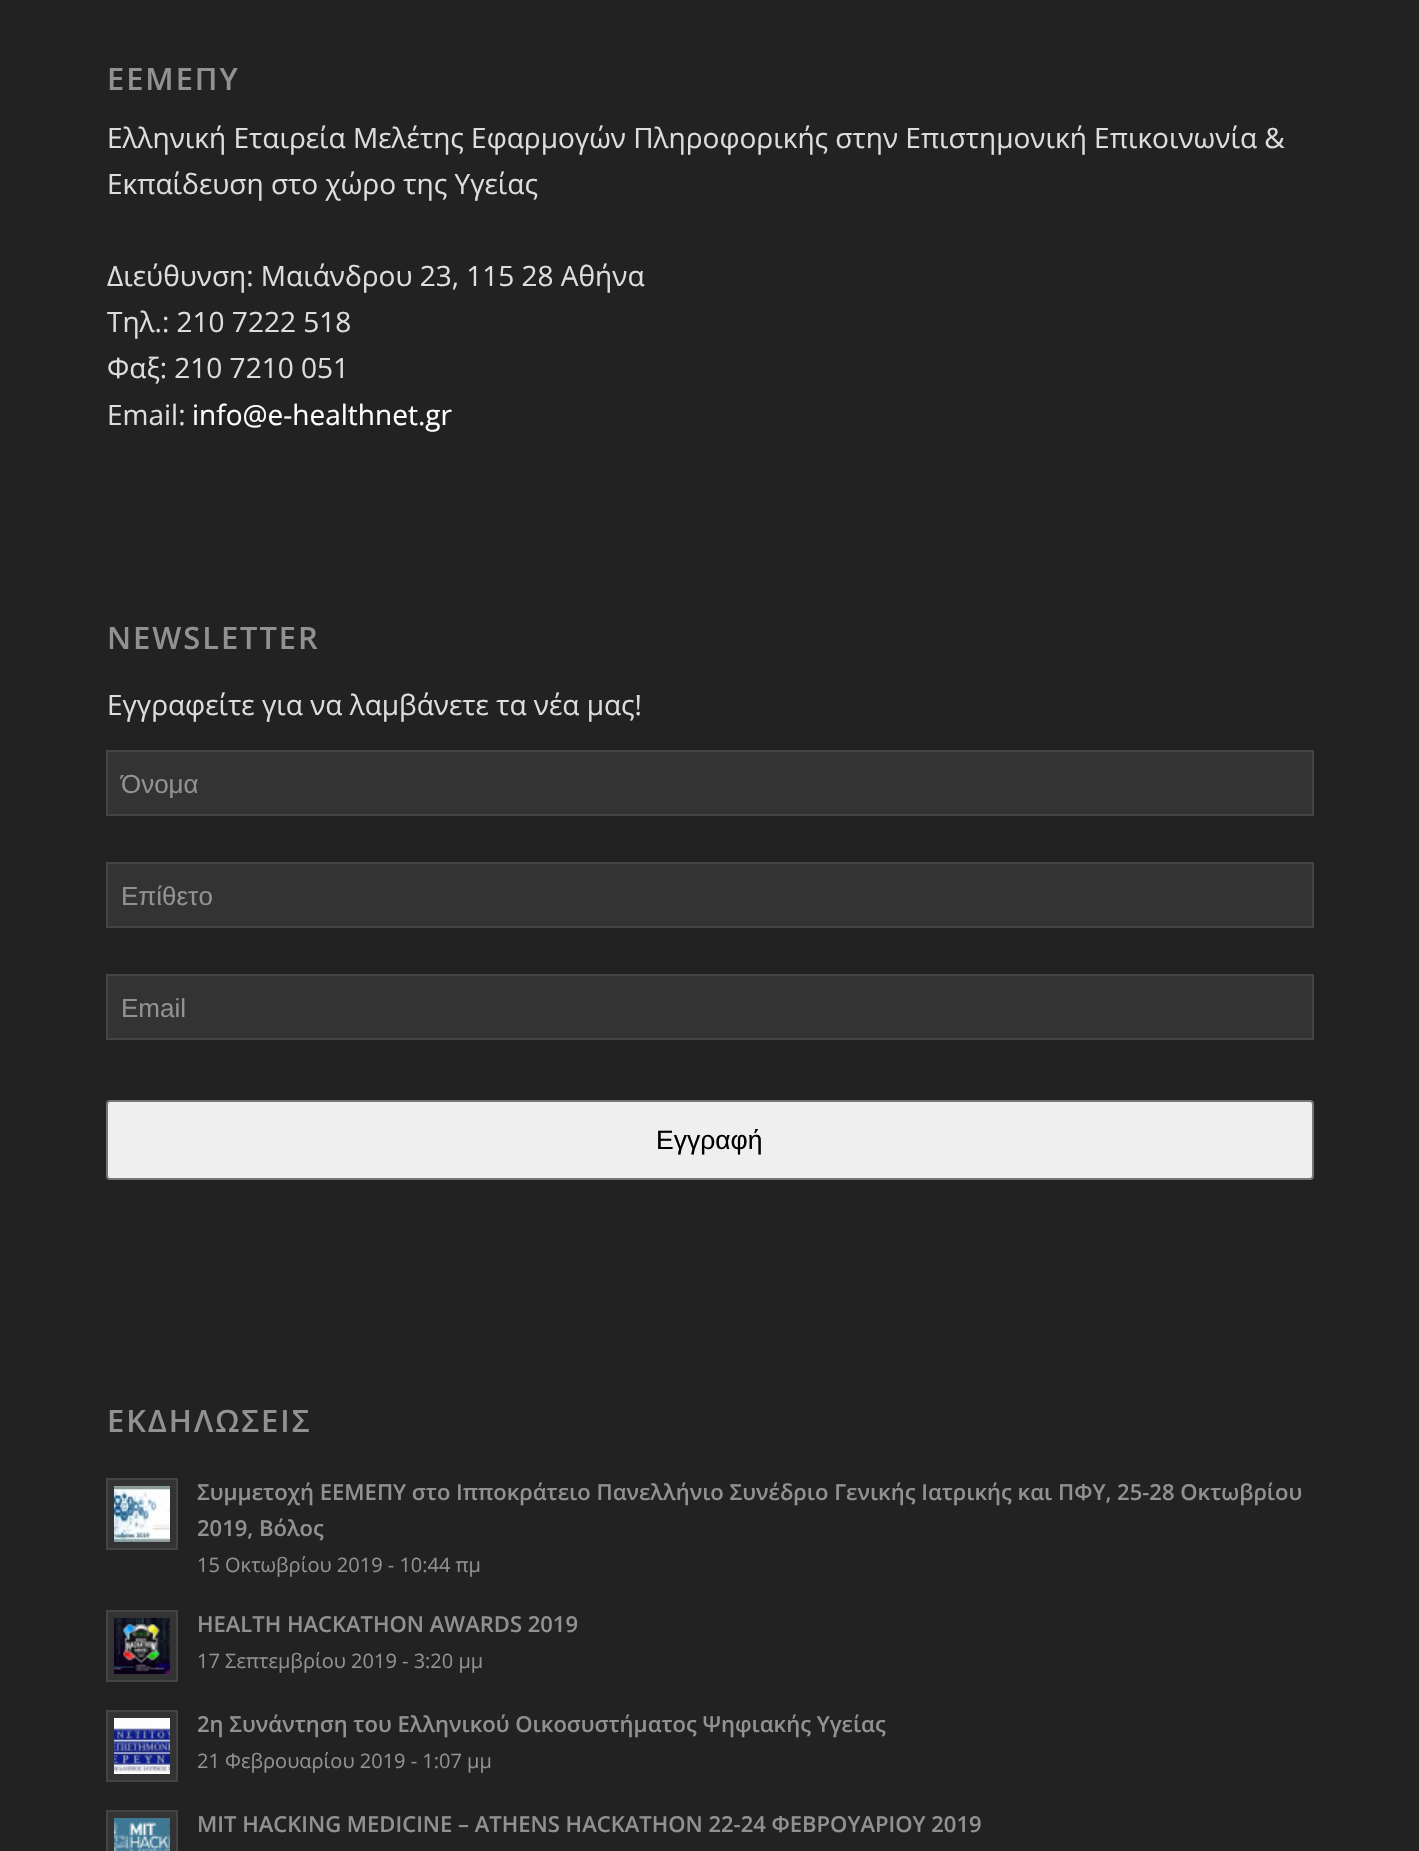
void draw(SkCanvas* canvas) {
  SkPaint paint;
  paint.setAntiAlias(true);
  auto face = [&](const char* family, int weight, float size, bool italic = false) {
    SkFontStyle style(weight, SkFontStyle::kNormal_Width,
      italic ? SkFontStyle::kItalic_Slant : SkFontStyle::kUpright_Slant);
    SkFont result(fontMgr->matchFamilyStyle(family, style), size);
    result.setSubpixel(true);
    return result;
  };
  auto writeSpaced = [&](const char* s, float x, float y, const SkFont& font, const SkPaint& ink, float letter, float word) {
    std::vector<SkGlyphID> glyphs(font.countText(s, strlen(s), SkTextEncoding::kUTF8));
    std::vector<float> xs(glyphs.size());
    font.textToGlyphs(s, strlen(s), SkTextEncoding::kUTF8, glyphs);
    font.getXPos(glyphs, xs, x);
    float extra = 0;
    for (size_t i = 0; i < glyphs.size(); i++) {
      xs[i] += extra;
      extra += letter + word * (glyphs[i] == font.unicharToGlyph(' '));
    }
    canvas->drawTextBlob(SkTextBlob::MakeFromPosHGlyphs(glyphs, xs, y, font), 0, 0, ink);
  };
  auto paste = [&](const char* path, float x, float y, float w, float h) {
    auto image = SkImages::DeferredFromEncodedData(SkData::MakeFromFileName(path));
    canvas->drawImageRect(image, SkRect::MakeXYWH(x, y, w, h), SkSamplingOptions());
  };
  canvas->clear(0xff222222);
  paint.setColor(0xff333333);
  canvas->drawRect(SkRect::MakeXYWH(107, 751, 1206, 64), paint);
  paint.setStroke(true);
  paint.setStrokeWidth(2);
  paint.setColor(0xff444444);
  canvas->drawRect(SkRect::MakeXYWH(107, 751, 1206, 64), paint);
  paint.setStroke(false);
  paint.setColor(0xff333333);
  canvas->drawRect(SkRect::MakeXYWH(107, 863, 1206, 64), paint);
  paint.setStroke(true);
  paint.setColor(0xff444444);
  canvas->drawRect(SkRect::MakeXYWH(107, 863, 1206, 64), paint);
  paint.setStroke(false);
  paint.setColor(0xff333333);
  canvas->drawRect(SkRect::MakeXYWH(107, 975, 1206, 64), paint);
  paint.setStroke(true);
  paint.setColor(0xff444444);
  canvas->drawRect(SkRect::MakeXYWH(107, 975, 1206, 64), paint);
  paint.setStroke(false);
  paint.setColor(0xffefefef);
  canvas->drawRoundRect(SkRect::MakeXYWH(107, 1101, 1206, 78), 3, 3, paint);
  paint.setStroke(true);
  paint.setColor(0xff767676);
  canvas->drawRoundRect(SkRect::MakeXYWH(107, 1101, 1206, 78), 3, 3, paint);
  paint.setStroke(false);
  paint.setColor(0xff333333);
  canvas->drawRect(SkRect::MakeXYWH(107, 1479, 70, 70), paint);
  paint.setStroke(true);
  paint.setColor(0xff444444);
  canvas->drawRect(SkRect::MakeXYWH(107, 1479, 70, 70), paint);
  paste("img/1.png", 114, 1486, 56, 56);
  paint.setStroke(false);
  paint.setColor(0xff333333);
  canvas->drawRect(SkRect::MakeXYWH(107, 1611, 70, 70), paint);
  paint.setStroke(true);
  paint.setColor(0xff444444);
  canvas->drawRect(SkRect::MakeXYWH(107, 1611, 70, 70), paint);
  paste("img/2.png", 114, 1618, 56, 56);
  paint.setStroke(false);
  paint.setColor(0xff333333);
  canvas->drawRect(SkRect::MakeXYWH(107, 1711, 70, 70), paint);
  paint.setStroke(true);
  paint.setColor(0xff444444);
  canvas->drawRect(SkRect::MakeXYWH(107, 1711, 70, 70), paint);
  paste("img/3.png", 114, 1718, 56, 56);
  paint.setStroke(false);
  paint.setColor(0xff333333);
  canvas->drawRect(SkRect::MakeXYWH(107, 1811, 70, 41), paint);
  paint.setStroke(true);
  paint.setColor(0xff444444);
  canvas->drawRect(SkRect::MakeXYWH(107, 1811, 70, 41), paint);
  paste("img/4.png", 114, 1818, 56, 33);
  auto f0 = face("Open Sans", 600, 30.75f);
  paint.setStroke(false);
  paint.setColor(0xff919191);
  writeSpaced("ΕΕΜΕΠΥ", 107, 90, f0, paint, 2, 0);
  auto f1 = face("Open Sans", 400, 28);
  paint.setColor(0xffdddddd);
  {
    const struct { const char* s; float x, y; } items[] = {
      {"Ελληνική Εταιρεία Μελέτης Εφαρμογών Πληροφορικής στην Επιστημονική Επικοινωνία &", 107, 148},
      {"Εκπαίδευση στο χώρο της Υγείας", 107, 194},
      {"Διεύθυνση: Μαιάνδρου 23, 115 28 Αθήνα", 107, 286},
      {"Τηλ.: 210 7222 518", 107, 332},
      {"Φαξ: 210 7210 051", 107, 378},
      {"Email:", 107, 425},
    };
    for (auto [s, x, y] : items) {
      canvas->drawString(s, x, y, f1, paint);
    }
  }
  paint.setColor(0xffffffff);
  canvas->drawString("info@e-healthnet.gr", 192, 425, f1, paint);
  paint.setColor(0xff919191);
  writeSpaced("NEWSLETTER", 107, 649, f0, paint, 2, 0);
  paint.setColor(0xffdddddd);
  canvas->drawString("Εγγραφείτε για να λαμβάνετε τα νέα μας!", 107, 715, f1, paint);
  canvas->save();
  canvas->clipRect(SkRect::MakeXYWH(120, 768, 1180, 30));
  auto f2 = face("Liberation Sans", 400, 26);
  paint.setColor(0xff919191);
  canvas->drawString("Όνομα", 121, 793, f2, paint);
  canvas->restore();
  canvas->drawString("Επίθετο", 121, 905, f2, paint);
  canvas->drawString("Email", 121, 1017, f2, paint);
  auto f3 = face("Liberation Sans", 400, 26.5f);
  paint.setColor(0xff000000);
  canvas->drawString("Εγγραφή", 656, 1149, f3, paint);
  paint.setColor(0xff919191);
  writeSpaced("ΕΚΔΗΛΩΣΕΙΣ", 107, 1432, f0, paint, 2, 0);
  auto f4 = face("Open Sans", 600, 22);
  canvas->drawString("Συμμετοχή ΕΕΜΕΠΥ στο Ιπποκράτειο Πανελλήνιο Συνέδριο Γενικής Ιατρικής και ΠΦΥ, 25-28 Οκτωβρίου", 197, 1500, f4, paint);
  canvas->drawString("2019, Βόλος", 197, 1536, f4, paint);
  auto f5 = face("Open Sans", 400, 20);
  canvas->drawString("15 Οκτωβρίου 2019 - 10:44 πμ", 197, 1572, f5, paint);
  canvas->drawString("HEALTH HACKATHON AWARDS 2019", 197, 1632, f4, paint);
  canvas->drawString("17 Σεπτεμβρίου 2019 - 3:20 μμ", 197, 1668, f5, paint);
  canvas->drawString("2η Συνάντηση του Ελληνικού Οικοσυστήματος Ψηφιακής Υγείας", 197, 1732, f4, paint);
  canvas->drawString("21 Φεβρουαρίου 2019 - 1:07 μμ", 197, 1768, f5, paint);
  canvas->drawString("MIT HACKING MEDICINE – ATHENS HACKATHON 22-24 ΦΕΒΡΟΥΑΡΙΟΥ 2019", 197, 1832, f4, paint);
}
